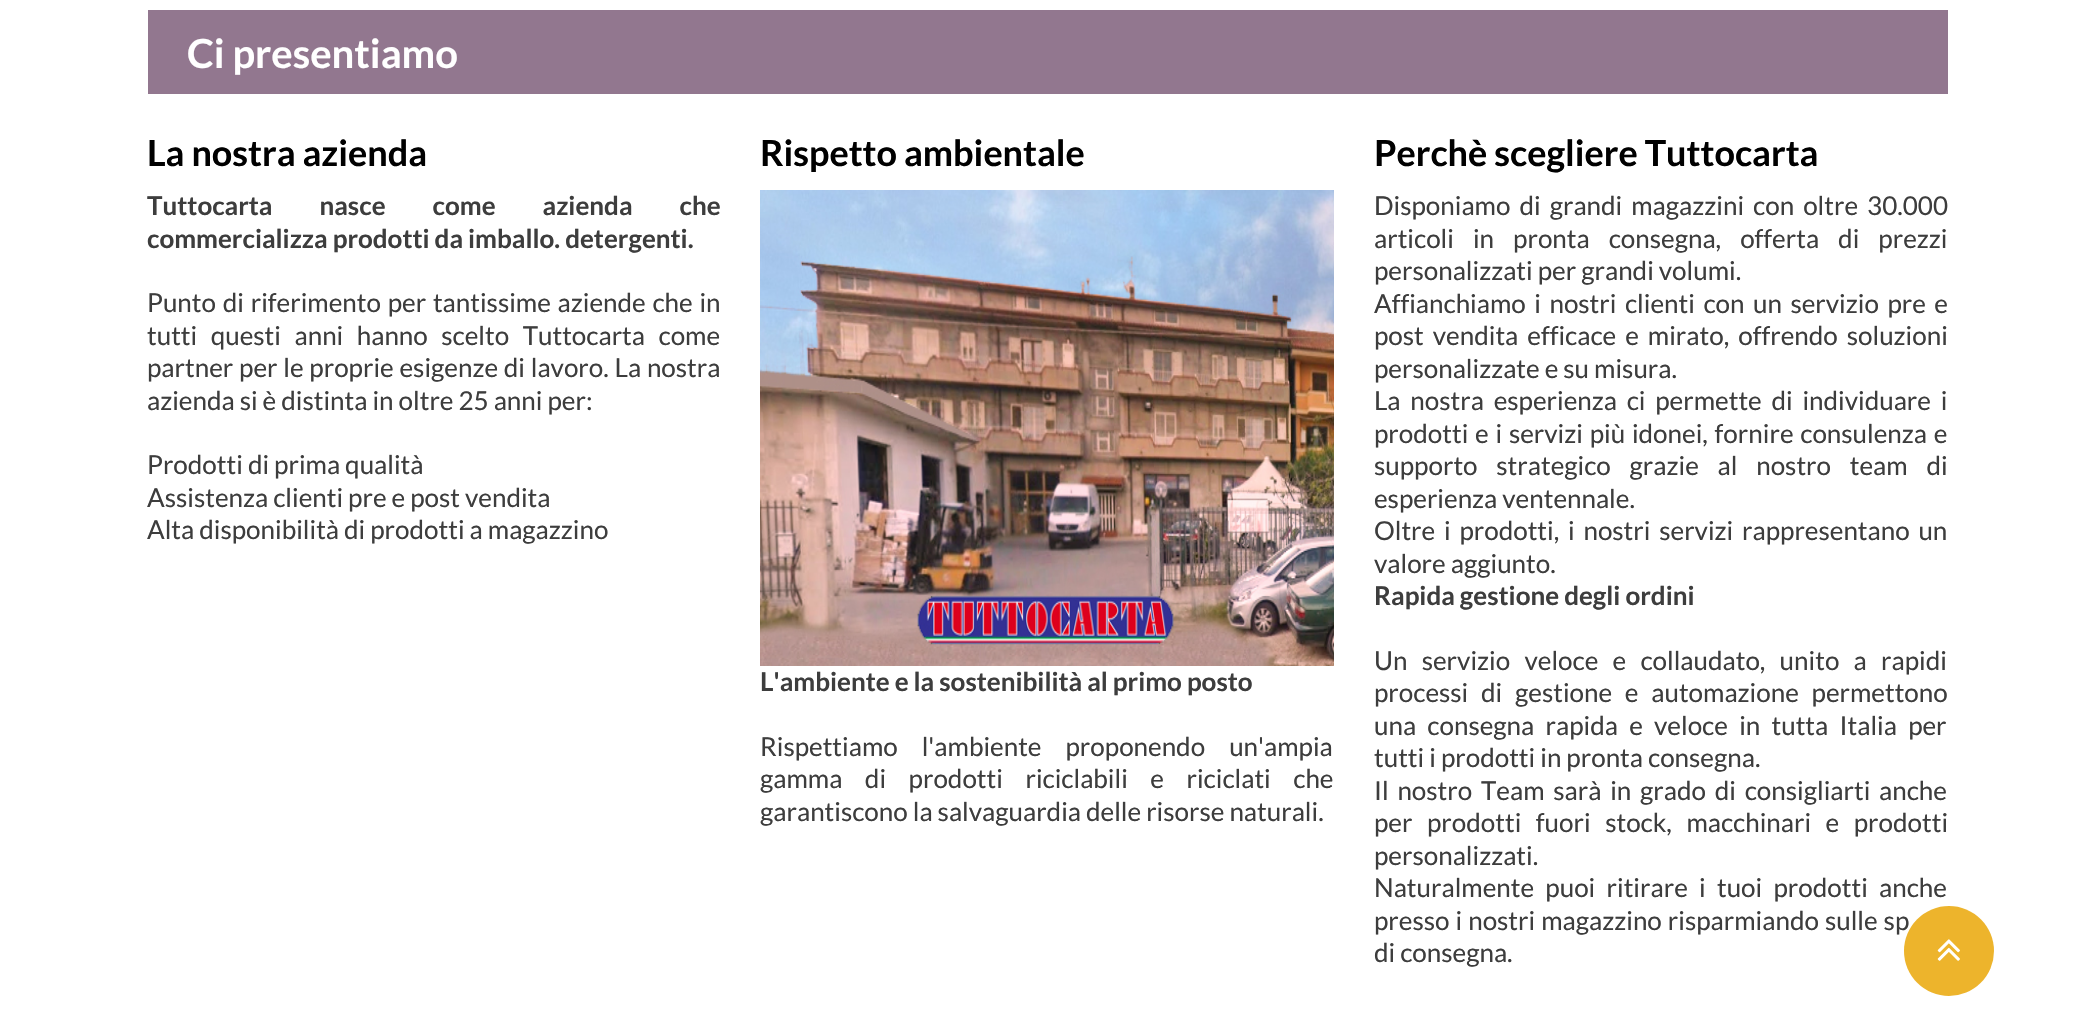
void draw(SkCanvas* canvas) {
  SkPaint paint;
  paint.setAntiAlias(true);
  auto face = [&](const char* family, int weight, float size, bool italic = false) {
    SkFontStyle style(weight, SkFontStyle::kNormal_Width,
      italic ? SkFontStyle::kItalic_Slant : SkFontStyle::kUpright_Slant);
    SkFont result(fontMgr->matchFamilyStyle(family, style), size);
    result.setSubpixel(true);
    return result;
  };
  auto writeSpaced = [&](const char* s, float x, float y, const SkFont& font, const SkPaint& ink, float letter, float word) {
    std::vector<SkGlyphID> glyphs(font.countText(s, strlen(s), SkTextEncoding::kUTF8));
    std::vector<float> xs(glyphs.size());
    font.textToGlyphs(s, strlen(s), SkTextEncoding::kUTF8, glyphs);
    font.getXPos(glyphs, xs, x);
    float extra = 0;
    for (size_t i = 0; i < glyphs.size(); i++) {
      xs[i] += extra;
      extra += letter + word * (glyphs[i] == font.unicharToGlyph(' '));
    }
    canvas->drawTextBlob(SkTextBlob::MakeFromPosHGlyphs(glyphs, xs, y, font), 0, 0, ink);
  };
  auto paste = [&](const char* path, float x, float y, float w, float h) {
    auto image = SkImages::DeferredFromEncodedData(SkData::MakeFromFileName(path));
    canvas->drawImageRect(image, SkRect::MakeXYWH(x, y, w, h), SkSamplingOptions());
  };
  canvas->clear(0xffffffff);
  paint.setColor(0xff92778f);
  canvas->drawRect(SkRect::MakeXYWH(148, 10, 1800, 84), paint);
  paste("img/1.png", 760, 190, 574, 476);
  auto f0 = face("Lato", 700, 40);
  paint.setColor(0xffffffff);
  canvas->drawString("Ci presentiamo", 187, 68, f0, paint);
  auto f1 = face("Lato", 700, 36);
  paint.setColor(0xff000000);
  canvas->drawString("La nostra azienda", 147, 166, f1, paint);
  auto f2 = face("Lato", 700, 26);
  paint.setColor(0xff3d3d3d);
  writeSpaced("Tuttocarta nasce come azienda che", 147, 215, f2, paint, 0, 42);
  canvas->drawString("commercializza prodotti da imballo. detergenti.", 147, 248, f2, paint);
  auto f3 = face("Lato", 400, 26);
  writeSpaced("Punto di riferimento per tantissime aziende che in", 147, 312, f3, paint, 0, 1.75f);
  writeSpaced("tutti questi anni hanno scelto Tuttocarta come", 147, 345, f3, paint, 0, 8.5f);
  writeSpaced("partner per le proprie esigenze di lavoro. La nostra", 147, 377, f3, paint, 0, 0.75f);
  {
    const struct { const char* s; float x, y; } items[] = {
      {"azienda si è distinta in oltre 25 anni per:", 147, 410},
      {"Prodotti di prima qualità", 147, 474},
      {"Assistenza clienti pre e post vendita", 147, 507},
      {"Alta disponibilità di prodotti a magazzino", 147, 539},
    };
    for (auto [s, x, y] : items) {
      canvas->drawString(s, x, y, f3, paint);
    }
  }
  paint.setColor(0xff000000);
  canvas->drawString("Rispetto ambientale", 760, 166, f1, paint);
  paint.setColor(0xff3d3d3d);
  canvas->drawString("L'ambiente e la sostenibilità al primo posto", 760, 691, f2, paint);
  writeSpaced("Rispettiamo l'ambiente proponendo un'ampia", 760, 756, f3, paint, 0, 19);
  writeSpaced("gamma di prodotti riciclabili e riciclati che", 760, 788, f3, paint, 0, 17.5f);
  canvas->drawString("garantiscono la salvaguardia delle risorse naturali.", 760, 821, f3, paint);
  paint.setColor(0xff000000);
  canvas->drawString("Perchè scegliere Tuttocarta", 1374, 166, f1, paint);
  paint.setColor(0xff3d3d3d);
  writeSpaced("Disponiamo di grandi magazzini con oltre 30.000", 1374, 215, f3, paint, 0, 4);
  writeSpaced("articoli in pronta consegna, offerta di prezzi", 1374, 248, f3, paint, 0, 14);
  canvas->drawString("personalizzati per grandi volumi.", 1374, 280, f3, paint);
  writeSpaced("Affianchiamo i nostri clienti con un servizio pre e", 1374, 313, f3, paint, 0, 3.5f);
  writeSpaced("post vendita efficace e mirato, offrendo soluzioni", 1374, 345, f3, paint, 0, 4);
  canvas->drawString("personalizzate e su misura.", 1374, 378, f3, paint);
  writeSpaced("La nostra esperienza ci permette di individuare i", 1374, 410, f3, paint, 0, 4.75f);
  writeSpaced("prodotti e i servizi più idonei, fornire consulenza e", 1374, 443, f3, paint, 0, 1.75f);
  writeSpaced("supporto strategico grazie al nostro team di", 1374, 475, f3, paint, 0, 13.75f);
  canvas->drawString("esperienza ventennale.", 1374, 508, f3, paint);
  writeSpaced("Oltre i prodotti, i nostri servizi rappresentano un", 1374, 540, f3, paint, 0, 3.75f);
  canvas->drawString("valore aggiunto.", 1374, 573, f3, paint);
  canvas->drawString("Rapida gestione degli ordini", 1374, 605, f2, paint);
  writeSpaced("Un servizio veloce e collaudato, unito a rapidi", 1374, 670, f3, paint, 0, 9.25f);
  writeSpaced("processi di gestione e automazione permettono", 1374, 702, f3, paint, 0, 7.75f);
  writeSpaced("una consegna rapida e veloce in tutta Italia per", 1374, 735, f3, paint, 0, 6.25f);
  canvas->drawString("tutti i prodotti in pronta consegna.", 1374, 767, f3, paint);
  writeSpaced("Il nostro Team sarà in grado di consigliarti anche", 1374, 800, f3, paint, 0, 3.75f);
  writeSpaced("per prodotti fuori stock, macchinari e prodotti", 1374, 832, f3, paint, 0, 9.5f);
  canvas->drawString("personalizzati.", 1374, 865, f3, paint);
  writeSpaced("Naturalmente puoi ritirare i tuoi prodotti anche", 1374, 897, f3, paint, 0, 6.25f);
  writeSpaced("presso i nostri magazzino risparmiando sulle sp", 1374, 930, f3, paint, 0, 1);
  canvas->drawString("di consegna.", 1374, 962, f3, paint);
  paint.setColor(0xffedb42c);
  canvas->drawCircle(1949, 951, 45, paint);
  paste("img/2.png", 1937, 939, 23, 22);
}
